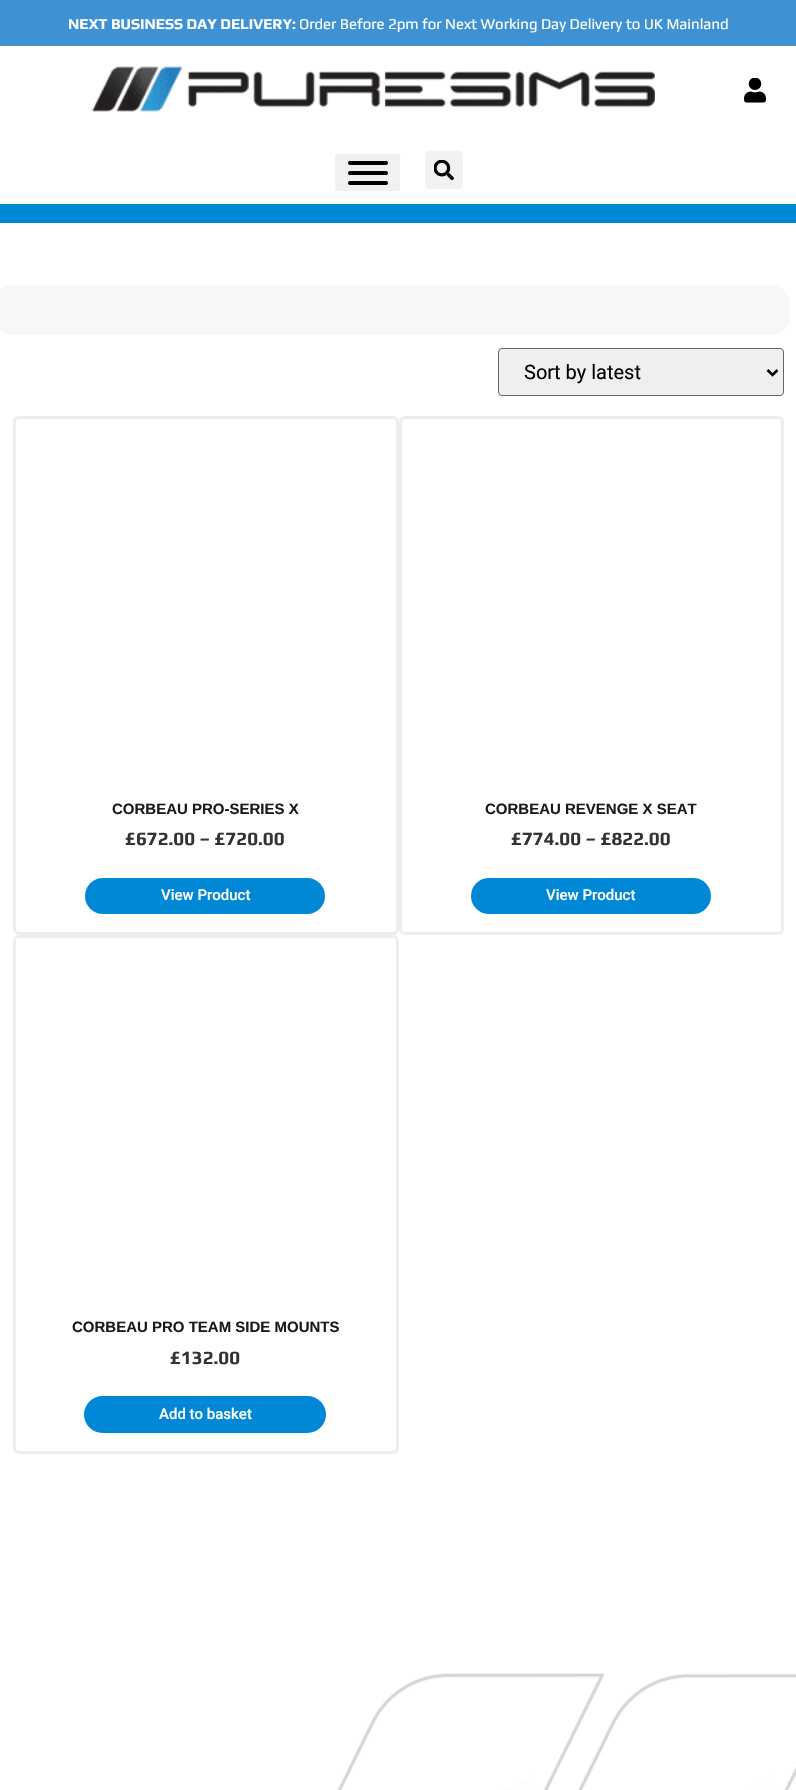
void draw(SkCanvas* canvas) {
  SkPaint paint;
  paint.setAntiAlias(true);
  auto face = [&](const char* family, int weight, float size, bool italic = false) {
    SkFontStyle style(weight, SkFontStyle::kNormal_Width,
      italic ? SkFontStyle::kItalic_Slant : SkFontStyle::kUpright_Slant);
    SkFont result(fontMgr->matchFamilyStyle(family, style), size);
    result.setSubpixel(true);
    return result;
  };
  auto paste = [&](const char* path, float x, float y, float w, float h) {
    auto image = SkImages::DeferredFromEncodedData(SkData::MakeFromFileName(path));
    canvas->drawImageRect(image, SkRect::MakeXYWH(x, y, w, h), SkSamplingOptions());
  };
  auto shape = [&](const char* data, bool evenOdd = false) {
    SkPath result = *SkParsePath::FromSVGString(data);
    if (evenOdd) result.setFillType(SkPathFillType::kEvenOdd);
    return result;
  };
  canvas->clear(0xffffffff);
  paint.setColor(0xff3e91d3);
  canvas->drawRect(SkRect::MakeXYWH(0, 0, 796, 46), paint);
  paint.setColor(0xff0087d6);
  canvas->drawRect(SkRect::MakeXYWH(0, 204, 796, 19), paint);
  paste("img/1.png", 92, 66, 563, 46);
  paste("img/2.png", 744, 78, 22, 25);
  paint.setColor(0xfff1f1f1);
  canvas->drawRoundRect(SkRect::MakeXYWH(335, 154, 65, 37), 2.5f, 2.5f, paint);
  paint.setColor(0xff000000);
  canvas->drawRoundRect(SkRect::MakeXYWH(348, 161, 40, 4), 2, 2, paint);
  canvas->drawRoundRect(SkRect::MakeXYWH(348, 171, 40, 4), 2, 2, paint);
  canvas->drawRoundRect(SkRect::MakeXYWH(348, 181, 40, 4), 2, 2, paint);
  paint.setColor(0xfff2f2f2);
  canvas->drawRoundRect(SkRect::MakeXYWH(425, 151, 38, 38), 4, 4, paint);
  paste("img/3.png", 434, 160, 20, 20);
  paint.setColor(0xfff7f7f7);
  canvas->drawRoundRect(SkRect::MakeXYWH(-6, 285, 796, 50), 19, 19, paint);
  paint.setColor(0xffefefef);
  canvas->drawRoundRect(SkRect::MakeXYWH(498.5f, 348.5f, 285, 47), 3.5f, 3.5f, paint);
  paint.setStroke(true);
  paint.setStrokeWidth(1);
  paint.setColor(0xff666666);
  canvas->drawRoundRect(SkRect::MakeXYWH(498.5f, 348.5f, 285, 47), 3.5f, 3.5f, paint);
  paint.setStrokeWidth(2.5f);
  paint.setColor(0xff000000);
  canvas->drawPath(shape("M767.5 370L772.5 375L777.5 370"), paint);
  paint.setStrokeWidth(3);
  paint.setColor(0xffeeeeee);
  canvas->drawRoundRect(SkRect::MakeXYWH(14.5f, 417.5f, 383, 516), 4.5f, 4.5f, paint);
  paint.setStroke(false);
  paint.setColor(0xff0087d6);
  canvas->drawRoundRect(SkRect::MakeXYWH(85, 878, 240, 36), 18, 18, paint);
  paint.setStroke(true);
  paint.setColor(0xffeeeeee);
  canvas->drawRoundRect(SkRect::MakeXYWH(400.5f, 417.5f, 382, 516), 4.5f, 4.5f, paint);
  paint.setStroke(false);
  paint.setColor(0xff0087d6);
  canvas->drawRoundRect(SkRect::MakeXYWH(471, 878, 240, 36), 18, 18, paint);
  paint.setStroke(true);
  paint.setColor(0xffeeeeee);
  canvas->drawRoundRect(SkRect::MakeXYWH(14.5f, 936.5f, 383, 516), 4.5f, 4.5f, paint);
  paint.setStroke(false);
  paint.setColor(0xff0087d6);
  canvas->drawRoundRect(SkRect::MakeXYWH(84, 1396, 242, 37), 18.5f, 18.5f, paint);
  paste("img/4.png", 337, 1673, 459, 117);
  auto f0 = face("Play", 700, 15);
  paint.setColor(0xffffffff);
  canvas->drawString("NEXT BUSINESS DAY DELIVERY:", 68, 29, f0, paint);
  auto f1 = face("Play", 400, 15);
  canvas->drawString("Order Before 2pm for Next Working Day Delivery to UK Mainland", 299, 29, f1, paint);
  auto f2 = face("Roboto", 400, 20);
  paint.setColor(0xff000000);
  canvas->drawString("Sort by latest", 524, 379, f2, paint);
  auto f3 = face("Liberation Sans", 700, 15);
  paint.setColor(0xff1a1a1a);
  canvas->drawString("CORBEAU PRO-SERIES X", 112, 814, f3, paint);
  auto f4 = face("Play", 700, 18.75f);
  paint.setColor(0xff333333);
  canvas->drawString("£672.00 – £720.00", 125, 845, f4, paint);
  auto f5 = face("Roboto", 500, 15);
  paint.setColor(0xffffffff);
  canvas->drawString("View Product", 161, 900, f5, paint);
  paint.setColor(0xff1a1a1a);
  canvas->drawString("CORBEAU REVENGE X SEAT", 485, 814, f3, paint);
  paint.setColor(0xff333333);
  canvas->drawString("£774.00 – £822.00", 511, 845, f4, paint);
  paint.setColor(0xffffffff);
  canvas->drawString("View Product", 546, 900, f5, paint);
  paint.setColor(0xff1a1a1a);
  canvas->drawString("CORBEAU PRO TEAM SIDE MOUNTS", 72, 1332, f3, paint);
  paint.setColor(0xff333333);
  canvas->drawString("£132.00", 170, 1364, f4, paint);
  paint.setColor(0xffffffff);
  canvas->drawString("Add to basket", 159, 1419, f5, paint);
}
